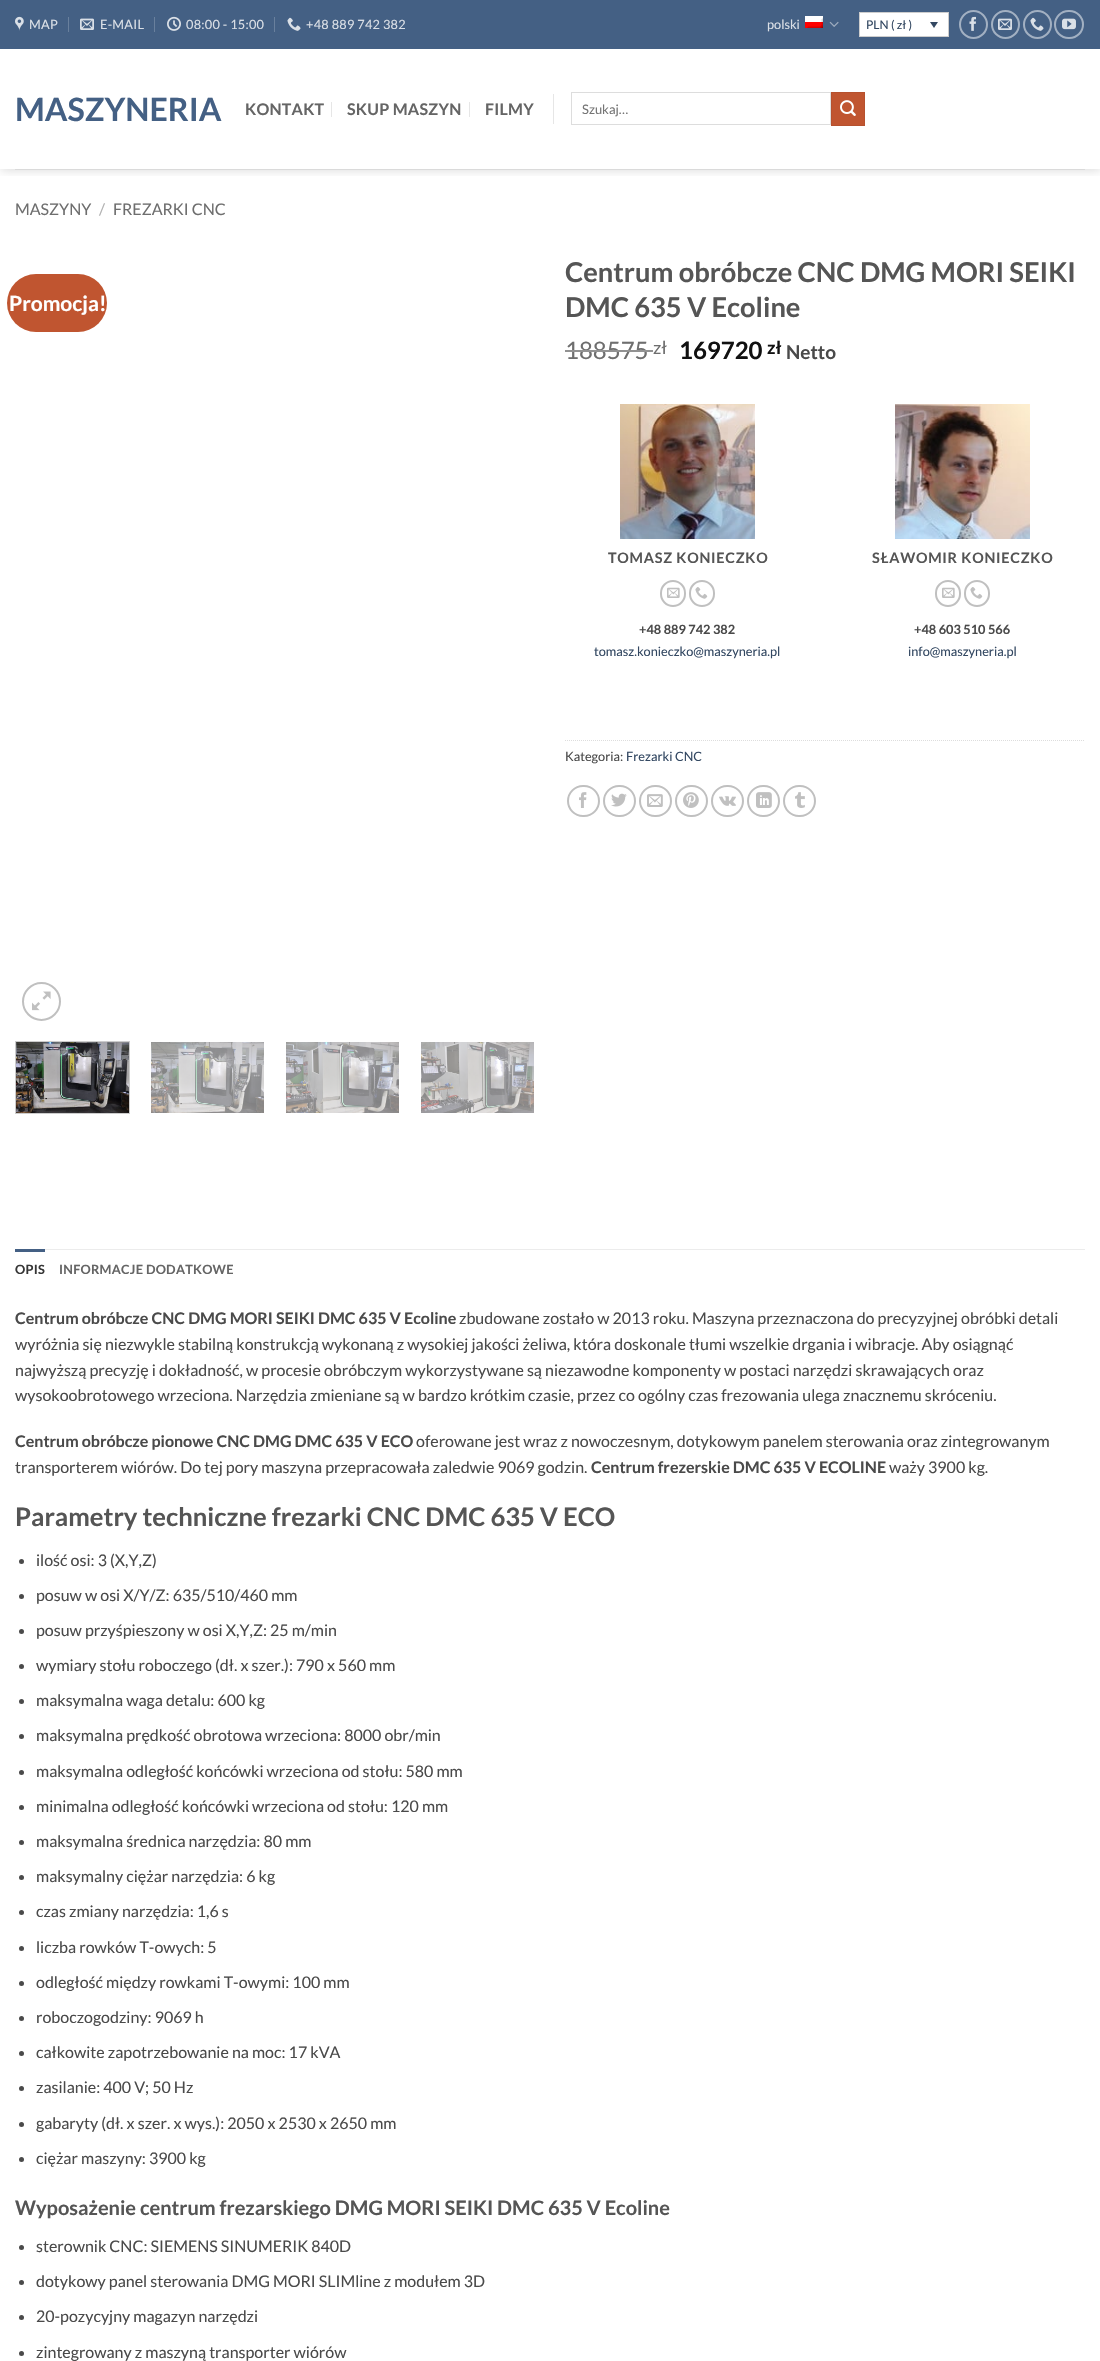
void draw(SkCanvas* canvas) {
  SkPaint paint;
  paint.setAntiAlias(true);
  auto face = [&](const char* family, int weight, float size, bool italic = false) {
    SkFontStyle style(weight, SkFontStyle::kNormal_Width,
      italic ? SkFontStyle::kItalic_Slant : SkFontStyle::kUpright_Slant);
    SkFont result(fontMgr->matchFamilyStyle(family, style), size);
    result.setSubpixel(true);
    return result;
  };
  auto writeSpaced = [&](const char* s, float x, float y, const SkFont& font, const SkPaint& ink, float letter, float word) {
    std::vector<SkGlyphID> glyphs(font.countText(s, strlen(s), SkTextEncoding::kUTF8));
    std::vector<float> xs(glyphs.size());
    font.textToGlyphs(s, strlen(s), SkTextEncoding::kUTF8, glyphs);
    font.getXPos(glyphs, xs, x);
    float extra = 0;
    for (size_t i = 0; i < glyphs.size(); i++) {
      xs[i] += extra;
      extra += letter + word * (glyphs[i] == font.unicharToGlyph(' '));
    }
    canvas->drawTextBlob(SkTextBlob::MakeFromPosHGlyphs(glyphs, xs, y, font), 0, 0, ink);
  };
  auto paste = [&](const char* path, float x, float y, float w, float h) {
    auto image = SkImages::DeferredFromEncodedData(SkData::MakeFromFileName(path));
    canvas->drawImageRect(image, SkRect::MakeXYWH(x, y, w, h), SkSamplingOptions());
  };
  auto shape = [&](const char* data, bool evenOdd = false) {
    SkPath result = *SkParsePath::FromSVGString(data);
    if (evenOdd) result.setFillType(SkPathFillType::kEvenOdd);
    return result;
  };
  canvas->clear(0xffffffff);
  canvas->save();
  canvas->clipRect(SkRect::MakeXYWH(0, 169, 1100, 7));
  paint.setColor(0x26000000);
  paint.setMaskFilter(SkMaskFilter::MakeBlur(kNormal_SkBlurStyle, 5));
  canvas->drawRect(SkRect::MakeXYWH(1, 1, 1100, 169), paint);
  paint.setMaskFilter(nullptr);
  canvas->restore();
  paint.setColor(0xff446084);
  canvas->drawRect(SkRect::MakeXYWH(0, 0, 1100, 49), paint);
  paste("img/1.png", 15, 16, 9, 15);
  paint.setColor(0xff69809d);
  canvas->drawRect(SkRect::MakeXYWH(68, 17, 1, 15), paint);
  paste("img/2.png", 80, 18, 14, 12);
  canvas->drawRect(SkRect::MakeXYWH(154, 17, 1, 15), paint);
  paste("img/3.png", 167, 16, 14, 15);
  canvas->drawRect(SkRect::MakeXYWH(274, 17, 1, 15), paint);
  paste("img/4.png", 287, 17, 14, 14);
  paste("img/5.png", 805, 16, 18, 12);
  paste("img/6.png", 829, 21, 10, 6);
  paint.setColor(0xffffffff);
  canvas->drawRect(SkRect::MakeXYWH(859.5f, 12.5f, 89, 24), paint);
  paint.setStroke(true);
  paint.setStrokeWidth(1);
  paint.setColor(0xffcdcdcd);
  canvas->drawRect(SkRect::MakeXYWH(859.5f, 12.5f, 89, 24), paint);
  paint.setStroke(false);
  paint.setColor(0xff334862);
  canvas->drawPath(shape("M930 22H938L934 28Z"), paint);
  paint.setStroke(true);
  paint.setStrokeWidth(2);
  paint.setColor(0xffa2b0c2);
  canvas->drawCircle(973.5f, 24.5f, 13.5f, paint);
  paste("img/7.png", 969, 16, 7, 15);
  canvas->drawCircle(1005.5f, 24.5f, 13.5f, paint);
  paste("img/8.png", 998, 18, 14, 12);
  canvas->drawCircle(1037.5f, 24.5f, 13.5f, paint);
  paste("img/9.png", 1030, 17, 14, 14);
  canvas->drawRoundRect(SkRect::MakeXYWH(1055, 11, 28, 27), 13.5f, 13.5f, paint);
  paste("img/10.png", 1062, 18, 14, 12);
  paint.setStroke(false);
  {
    const struct { float x, y, w, h; SkColor color; } items[] = {
      {331, 102, 1, 15, 0xffe6e6e6},
      {469, 102, 1, 15, 0xffe6e6e6},
      {553, 94, 1, 30, 0xffe6e6e6},
    };
    for (auto [x, y, w, h, color] : items) {
      paint.setColor(color);
      canvas->drawRect(SkRect::MakeXYWH(x, y, w, h), paint);
    }
  }
  paint.setStroke(true);
  paint.setStrokeWidth(1);
  paint.setColor(0xffdddddd);
  canvas->drawRect(SkRect::MakeXYWH(571.5f, 92.5f, 259, 32), paint);
  paint.setStroke(false);
  paint.setColor(0xffc05530);
  canvas->drawRect(SkRect::MakeXYWH(831.5f, 92.5f, 33, 33), paint);
  paint.setStroke(true);
  paint.setColor(0xffb6512e);
  canvas->drawRect(SkRect::MakeXYWH(831.5f, 92.5f, 33, 33), paint);
  paste("img/11.png", 840, 100, 16, 16);
  paint.setStroke(false);
  paint.setColor(0xffdadada);
  canvas->drawRect(SkRect::MakeXYWH(15, 169, 1070, 1), paint);
  paint.setColor(0xffc05530);
  canvas->drawRoundRect(SkRect::MakeXYWH(7, 274, 100, 58), 29, 29, paint);
  paint.setStroke(true);
  paint.setStrokeWidth(2);
  paint.setColor(0xffc0c0c0);
  canvas->drawCircle(41.5f, 1001.5f, 18.5f, paint);
  paste("img/12.png", 32, 991, 19, 20);
  paint.setStrokeWidth(1);
  paint.setColor(0xffcccccc);
  canvas->drawRect(SkRect::MakeXYWH(15.5f, 1041.5f, 114, 72), paint);
  paste("img/13.png", 16, 1042, 113, 71);
  paste("img/14.png", 151, 1042, 113, 71);
  paste("img/15.png", 286, 1042, 113, 71);
  paste("img/16.png", 421, 1042, 113, 71);
  paste("img/17.png", 620, 404, 135, 135);
  paint.setStrokeWidth(2);
  paint.setColor(0xffc0c0c0);
  canvas->drawRoundRect(SkRect::MakeXYWH(661, 581, 24, 25), 12, 12, paint);
  paste("img/18.png", 667, 587, 13, 11);
  canvas->drawRoundRect(SkRect::MakeXYWH(690, 581, 24, 25), 12, 12, paint);
  paste("img/19.png", 695, 587, 13, 12);
  paste("img/20.png", 895, 404, 135, 135);
  canvas->drawRoundRect(SkRect::MakeXYWH(936, 581, 24, 25), 12, 12, paint);
  paste("img/18.png", 942, 587, 13, 11);
  canvas->drawRoundRect(SkRect::MakeXYWH(965, 581, 24, 25), 12, 12, paint);
  paste("img/19.png", 970, 587, 13, 12);
  paint.setStrokeWidth(1);
  paint.setColor(0xffdddddd);
  paint.setPathEffect(SkDashPathEffect::Make({{1, 1}}, 0));
  canvas->drawPath(shape("M565 740.5H1085"), paint);
  paint.setPathEffect(nullptr);
  paint.setStrokeWidth(2);
  paint.setColor(0xffc0c0c0);
  canvas->drawRoundRect(SkRect::MakeXYWH(568, 786, 31, 30), 15, 15, paint);
  paste("img/21.png", 579, 792, 8, 16);
  canvas->drawRoundRect(SkRect::MakeXYWH(604, 786, 31, 30), 15, 15, paint);
  paste("img/22.png", 611, 793, 16, 14);
  canvas->drawRoundRect(SkRect::MakeXYWH(640, 786, 31, 30), 15, 15, paint);
  paste("img/23.png", 647, 794, 16, 13);
  canvas->drawRoundRect(SkRect::MakeXYWH(676, 786, 31, 30), 15, 15, paint);
  paste("img/24.png", 683, 792, 16, 16);
  canvas->drawRoundRect(SkRect::MakeXYWH(712, 786, 31, 30), 15, 15, paint);
  paste("img/25.png", 719, 796, 17, 10);
  canvas->drawRoundRect(SkRect::MakeXYWH(748, 786, 31, 30), 15, 15, paint);
  paste("img/26.png", 756, 792, 16, 16);
  canvas->drawRoundRect(SkRect::MakeXYWH(784, 786, 31, 30), 15, 15, paint);
  paste("img/27.png", 795, 792, 10, 16);
  paint.setStroke(false);
  paint.setColor(0xffececec);
  canvas->drawRect(SkRect::MakeXYWH(45, 1249, 1040, 1), paint);
  paint.setColor(0xff446084);
  canvas->drawRect(SkRect::MakeXYWH(15, 1249, 30, 3), paint);
  paint.setColor(0xff4a4a4a);
  canvas->drawCircle(21.5f, 1561.5f, 2.5f, paint);
  canvas->drawCircle(21.5f, 1596.5f, 2.5f, paint);
  canvas->drawCircle(21.5f, 1631.5f, 2.5f, paint);
  canvas->drawCircle(21.5f, 1666.5f, 2.5f, paint);
  canvas->drawCircle(21.5f, 1701.5f, 2.5f, paint);
  canvas->drawCircle(21.5f, 1736.5f, 2.5f, paint);
  canvas->drawCircle(21.5f, 1772.5f, 2.5f, paint);
  canvas->drawCircle(21.5f, 1807.5f, 2.5f, paint);
  canvas->drawCircle(21.5f, 1842.5f, 2.5f, paint);
  canvas->drawCircle(21.5f, 1877.5f, 2.5f, paint);
  canvas->drawCircle(21.5f, 1912.5f, 2.5f, paint);
  canvas->drawCircle(21.5f, 1948.5f, 2.5f, paint);
  canvas->drawCircle(21.5f, 1983.5f, 2.5f, paint);
  canvas->drawCircle(21.5f, 2018.5f, 2.5f, paint);
  canvas->drawCircle(21.5f, 2053.5f, 2.5f, paint);
  canvas->drawCircle(21.5f, 2088.5f, 2.5f, paint);
  canvas->drawCircle(21.5f, 2124.5f, 2.5f, paint);
  canvas->drawCircle(21.5f, 2159.5f, 2.5f, paint);
  canvas->drawCircle(21.5f, 2247.5f, 2.5f, paint);
  canvas->drawCircle(21.5f, 2282.5f, 2.5f, paint);
  canvas->drawCircle(21.5f, 2317.5f, 2.5f, paint);
  canvas->drawCircle(21.5f, 2353.5f, 2.5f, paint);
  auto f0 = face("Lato", 400, 12.75f);
  paint.setColor(0xffdadfe6);
  {
    const struct { const char* s; float x, y; } items[] = {
      {"MAP", 29, 29},
      {"E-MAIL", 100, 29},
      {"08:00 - 15:00", 186, 29},
      {"+48 889 742 382", 306, 29},
    };
    for (auto [s, x, y] : items) {
      writeSpaced(s, x, y, f0, paint, 0.25f, 0);
    }
  }
  canvas->drawString("polski", 767, 29, f0, paint);
  auto f1 = face("Lato", 400, 12);
  paint.setColor(0xff334862);
  canvas->drawString("PLN ( zł )", 866, 29, f1, paint);
  auto f2 = face("Lato", 700, 32);
  paint.setColor(0xff446084);
  canvas->drawString("MASZYNERIA", 15, 121, f2, paint);
  auto f3 = face("Lato", 700, 16);
  paint.setColor(0xff656565);
  {
    const struct { const char* s; float x, y; } items[] = {
      {"KONTAKT", 245, 115},
      {"SKUP MASZYN", 347, 115},
      {"FILMY", 485, 115},
    };
    for (auto [s, x, y] : items) {
      writeSpaced(s, x, y, f3, paint, 0.25f, 0);
    }
  }
  auto f4 = face("Lato", 400, 13);
  paint.setColor(0xff757575);
  canvas->drawString("Szukaj…", 582, 114, f4, paint);
  auto f5 = face("Lato", 400, 16);
  paint.setColor(0xff6e6e6e);
  canvas->drawString("MASZYNY", 15, 215, f5, paint);
  paint.setColor(0xffb2b2b2);
  canvas->drawString("/", 99, 215, f5, paint);
  paint.setColor(0xff6e6e6e);
  canvas->drawString("FREZARKI CNC", 113, 215, f5, paint);
  auto f6 = face("Lato", 700, 21);
  paint.setColor(0xffffffff);
  canvas->drawString("Promocja!", 9, 311, f6, paint);
  auto f7 = face("Lato", 700, 27.25f);
  paint.setColor(0xff555555);
  canvas->drawString("Centrum obróbcze CNC DMG MORI SEIKI", 565, 282, f7, paint);
  canvas->drawString("DMC 635 V Ecoline", 565, 317, f7, paint);
  auto f8 = face("Lato", 400, 24);
  paint.setColor(0xff6e6e6e);
  canvas->drawString("188575", 565, 359, f8, paint);
  paint.setColor(0xff929292);
  canvas->drawRect(SkRect::MakeXYWH(565, 350, 88, 2), paint);
  auto f9 = face("Lato", 400, 18);
  paint.setColor(0xff6e6e6e);
  canvas->drawString("zł", 653, 354, f9, paint);
  auto f10 = face("Lato", 700, 24);
  paint.setColor(0xff111111);
  canvas->drawString("169720", 679, 359, f10, paint);
  auto f11 = face("Lato", 700, 18);
  canvas->drawString("zł", 767, 354, f11, paint);
  auto f12 = face("Lato", 700, 19);
  paint.setColor(0xff4a4a4a);
  canvas->drawString("Netto", 786, 359, f12, paint);
  auto f13 = face("Lato", 700, 14.4f);
  paint.setColor(0xff555555);
  writeSpaced("TOMASZ KONIECZKO", 608, 563, f13, paint, 0.75f, 0);
  auto f14 = face("Lato", 700, 12.75f);
  paint.setColor(0xff4a4a4a);
  canvas->drawString("+48 889 742 382", 639, 634, f14, paint);
  paint.setColor(0xff334862);
  canvas->drawString("tomasz.konieczko@maszyneria.pl", 594, 656, f0, paint);
  paint.setColor(0xff555555);
  writeSpaced("SŁAWOMIR KONIECZKO", 872, 563, f13, paint, 0.75f, 0);
  paint.setColor(0xff4a4a4a);
  canvas->drawString("+48 603 510 566", 914, 634, f14, paint);
  paint.setColor(0xff334862);
  canvas->drawString("info@maszyneria.pl", 908, 656, f0, paint);
  paint.setColor(0xff4a4a4a);
  canvas->drawString("Kategoria:", 565, 761, f0, paint);
  paint.setColor(0xff334862);
  canvas->drawString("Frezarki CNC", 626, 761, f0, paint);
  paint.setColor(0xff363636);
  writeSpaced("OPIS", 15, 1274, f14, paint, 0.25f, 0);
  paint.setColor(0xff656565);
  writeSpaced("INFORMACJE DODATKOWE", 59, 1274, f14, paint, 0.25f, 0);
  paint.setColor(0xff4a4a4a);
  canvas->drawString("Centrum obróbcze CNC DMG MORI SEIKI DMC 635 V Ecoline", 15, 1324, f3, paint);
  {
    const struct { const char* s; float x, y; } items[] = {
      {"zbudowane zostało w 2013 roku. Maszyna przeznaczona do precyzyjnej obróbki detali", 459, 1324},
      {"wyróżnia się niezwykle stabilną konstrukcją wykonaną z wysokiej jakości żeliwa, która doskonale tłumi wszelkie drgania i wibracje. Aby osiągnąć", 15, 1350},
      {"najwyższą precyzję i dokładność, w procesie obróbczym wykorzystywane są niezawodne komponenty w postaci narzędzi skrawających oraz", 15, 1376},
      {"wysokoobrotowego wrzeciona. Narzędzia zmieniane są w bardzo krótkim czasie, przez co ogólny czas frezowania ulega znacznemu skróceniu.", 15, 1401},
    };
    for (auto [s, x, y] : items) {
      canvas->drawString(s, x, y, f5, paint);
    }
  }
  canvas->drawString("Centrum obróbcze pionowe CNC DMG DMC 635 V ECO", 15, 1447, f3, paint);
  canvas->drawString("oferowane jest wraz z nowoczesnym, dotykowym panelem sterowania oraz zintegrowanym", 416, 1447, f5, paint);
  canvas->drawString("transporterem wiórów. Do tej pory maszyna przepracowała zaledwie 9069 godzin.", 15, 1473, f5, paint);
  canvas->drawString("Centrum frezerskie DMC 635 V ECOLINE", 591, 1473, f3, paint);
  canvas->drawString("waży 3900 kg.", 889, 1473, f5, paint);
  auto f15 = face("Lato", 700, 25.6f);
  paint.setColor(0xff555555);
  canvas->drawString("Parametry techniczne frezarki CNC DMC 635 V ECO", 15, 1526, f15, paint);
  paint.setColor(0xff4a4a4a);
  {
    const struct { const char* s; float x, y; } items[] = {
      {"ilość osi: 3 (X,Y,Z)", 36, 1566},
      {"posuw w osi X/Y/Z: 635/510/460 mm", 36, 1601},
      {"posuw przyśpieszony w osi X,Y,Z: 25 m/min", 36, 1636},
      {"wymiary stołu roboczego (dł. x szer.): 790 x 560 mm", 36, 1671},
      {"maksymalna waga detalu: 600 kg", 36, 1706},
      {"maksymalna prędkość obrotowa wrzeciona: 8000 obr/min", 36, 1741},
      {"maksymalna odległość końcówki wrzeciona od stołu: 580 mm", 36, 1777},
      {"minimalna odległość końcówki wrzeciona od stołu: 120 mm", 36, 1812},
      {"maksymalna średnica narzędzia: 80 mm", 36, 1847},
      {"maksymalny ciężar narzędzia: 6 kg", 36, 1882},
      {"czas zmiany narzędzia: 1,6 s", 36, 1917},
      {"liczba rowków T-owych: 5", 36, 1953},
      {"odległość między rowkami T-owymi: 100 mm", 36, 1988},
      {"roboczogodziny: 9069 h", 36, 2023},
      {"całkowite zapotrzebowanie na moc: 17 kVA", 36, 2058},
      {"zasilanie: 400 V; 50 Hz", 36, 2093},
      {"gabaryty (dł. x szer. x wys.): 2050 x 2530 x 2650 mm", 36, 2129},
      {"ciężar maszyny: 3900 kg", 36, 2164},
    };
    for (auto [s, x, y] : items) {
      canvas->drawString(s, x, y, f5, paint);
    }
  }
  auto f16 = face("Lato", 700, 20);
  paint.setColor(0xff555555);
  canvas->drawString("Wyposażenie centrum frezarskiego DMG MORI SEIKI DMC 635 V Ecoline", 15, 2215, f16, paint);
  paint.setColor(0xff4a4a4a);
  {
    const struct { const char* s; float x, y; } items[] = {
      {"sterownik CNC: SIEMENS SINUMERIK 840D", 36, 2252},
      {"dotykowy panel sterowania DMG MORI SLIMline z modułem 3D", 36, 2287},
      {"20-pozycyjny magazyn narzędzi", 36, 2322},
      {"zintegrowany z maszyną transporter wiórów", 36, 2358},
    };
    for (auto [s, x, y] : items) {
      canvas->drawString(s, x, y, f5, paint);
    }
  }
}
